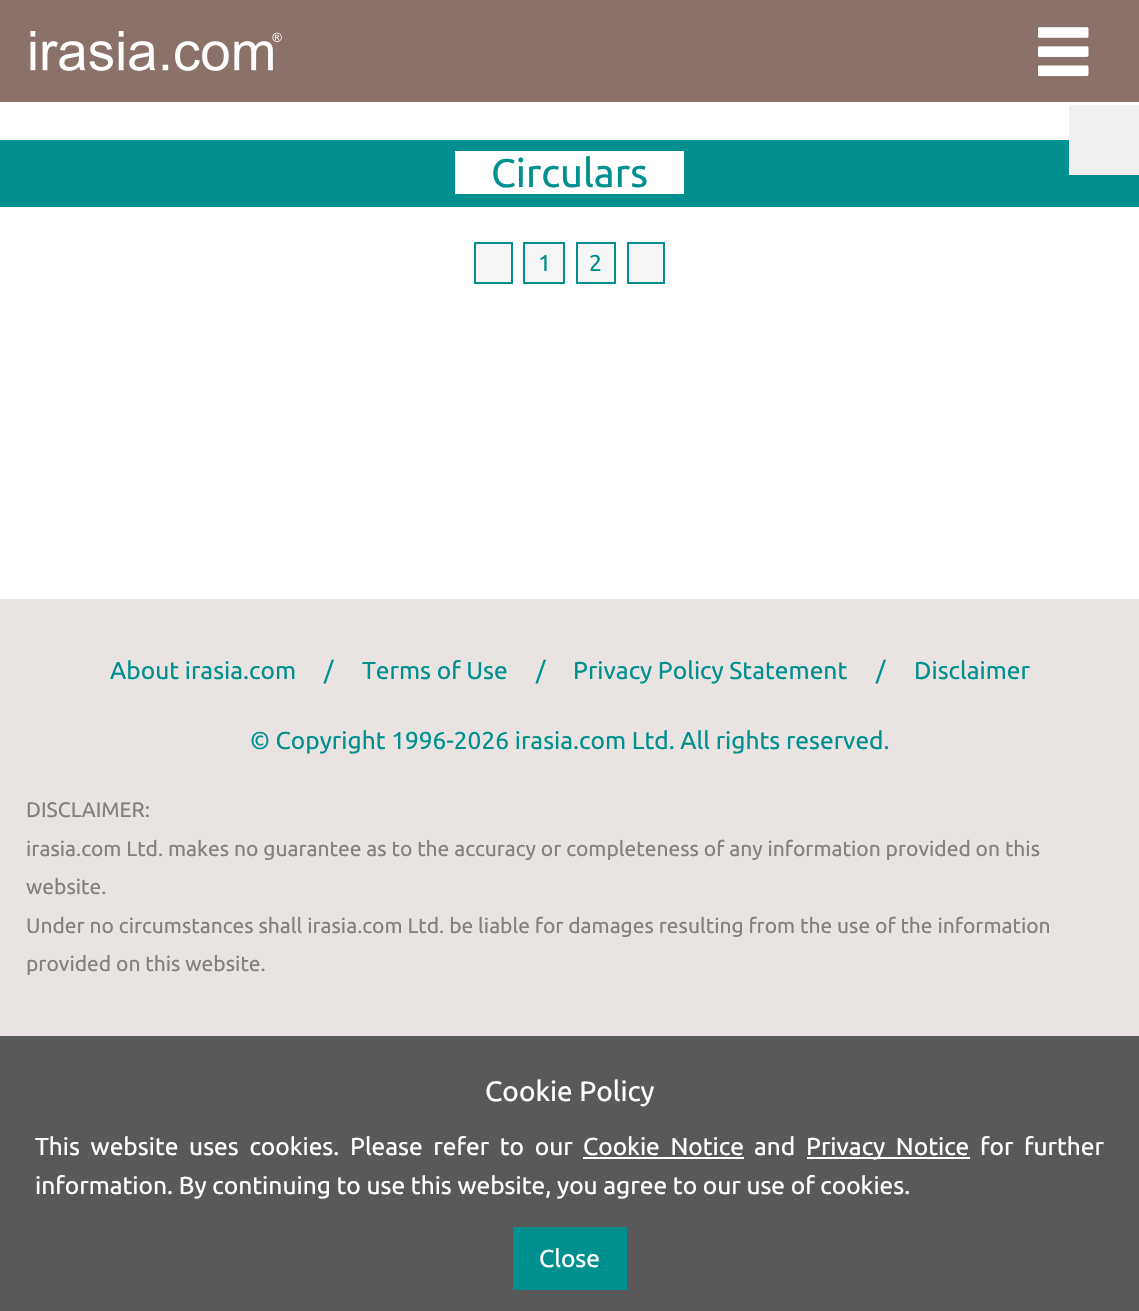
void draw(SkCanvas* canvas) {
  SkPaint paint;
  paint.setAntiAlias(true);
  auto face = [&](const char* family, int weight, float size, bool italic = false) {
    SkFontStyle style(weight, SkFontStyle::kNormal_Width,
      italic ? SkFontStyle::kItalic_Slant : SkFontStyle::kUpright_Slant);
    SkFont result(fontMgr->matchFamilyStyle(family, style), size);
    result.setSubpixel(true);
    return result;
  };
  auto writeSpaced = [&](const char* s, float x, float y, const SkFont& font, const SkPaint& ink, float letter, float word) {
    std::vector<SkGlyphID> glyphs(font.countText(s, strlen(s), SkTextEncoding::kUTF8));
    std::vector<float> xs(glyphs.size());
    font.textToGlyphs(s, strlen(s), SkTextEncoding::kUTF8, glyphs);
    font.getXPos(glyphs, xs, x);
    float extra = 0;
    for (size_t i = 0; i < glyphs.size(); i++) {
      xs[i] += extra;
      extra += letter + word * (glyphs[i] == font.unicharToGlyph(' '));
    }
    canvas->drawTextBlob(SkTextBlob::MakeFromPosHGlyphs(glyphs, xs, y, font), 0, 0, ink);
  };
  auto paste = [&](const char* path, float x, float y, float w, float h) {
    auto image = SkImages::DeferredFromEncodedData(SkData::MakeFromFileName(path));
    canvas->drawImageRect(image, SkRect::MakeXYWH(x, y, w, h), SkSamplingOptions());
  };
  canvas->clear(0xffffffff);
  paint.setColor(0xff8a716a);
  canvas->drawRect(SkRect::MakeXYWH(0, 0, 1139, 102), paint);
  paste("img/1.png", 30, 31, 252, 40);
  paste("img/2.png", 1038, 27, 51, 50);
  {
    const struct { float x, y, w, h; SkColor color; } items[] = {
      {0, 140, 1139, 67, 0xff018f90},
      {455, 151, 229, 43, 0xffffffff},
      {1069, 105, 70, 70, 0xfff0f0f0},
    };
    for (auto [x, y, w, h, color] : items) {
      paint.setColor(color);
      canvas->drawRect(SkRect::MakeXYWH(x, y, w, h), paint);
    }
  }
  paint.setColor(0xfff5f5f5);
  canvas->drawRect(SkRect::MakeXYWH(475, 243, 37, 40), paint);
  paint.setStroke(true);
  paint.setStrokeWidth(2);
  paint.setColor(0xff018f90);
  canvas->drawRect(SkRect::MakeXYWH(475, 243, 37, 40), paint);
  paint.setStroke(false);
  paint.setColor(0xfff5f5f5);
  canvas->drawRect(SkRect::MakeXYWH(524, 243, 40, 40), paint);
  paint.setStroke(true);
  paint.setColor(0xff018f90);
  canvas->drawRect(SkRect::MakeXYWH(524, 243, 40, 40), paint);
  paint.setStroke(false);
  paint.setColor(0xfff5f5f5);
  canvas->drawRect(SkRect::MakeXYWH(577, 243, 38, 40), paint);
  paint.setStroke(true);
  paint.setColor(0xff018f90);
  canvas->drawRect(SkRect::MakeXYWH(577, 243, 38, 40), paint);
  paint.setStroke(false);
  paint.setColor(0xfff5f5f5);
  canvas->drawRect(SkRect::MakeXYWH(628, 243, 36, 40), paint);
  paint.setStroke(true);
  paint.setColor(0xff018f90);
  canvas->drawRect(SkRect::MakeXYWH(628, 243, 36, 40), paint);
  paint.setStroke(false);
  {
    const struct { float x, y, w, h; SkColor color; } items[] = {
      {0, 599, 1139, 437, 0xffe9e4e1},
      {0, 1036, 1139, 275, 0xff595959},
      {583, 1157, 161, 2, 0xffffffff},
      {807, 1157, 163, 2, 0xffffffff},
      {513, 1227, 114, 63, 0xff009090},
    };
    for (auto [x, y, w, h, color] : items) {
      paint.setColor(color);
      canvas->drawRect(SkRect::MakeXYWH(x, y, w, h), paint);
    }
  }
  auto f0 = face("Ubuntu", 400, 40);
  paint.setColor(0xff00908f);
  canvas->drawString("Circulars", 491, 187, f0, paint);
  auto f1 = face("Ubuntu", 400, 23);
  canvas->drawString("1", 538, 271, f1, paint);
  canvas->drawString("2", 589, 271, f1, paint);
  auto f2 = face("Ubuntu", 400, 24.5f);
  {
    const struct { const char* s; float x, y; } items[] = {
      {"About irasia.com", 110, 679},
      {"/", 324, 679},
      {"Terms of Use", 362, 679},
      {"/", 536, 679},
      {"Privacy Policy Statement", 573, 679},
      {"/", 876, 679},
      {"Disclaimer", 914, 679},
      {"© Copyright 1996-2026 irasia.com Ltd. All rights reserved.", 250, 749},
    };
    for (auto [s, x, y] : items) {
      canvas->drawString(s, x, y, f2, paint);
    }
  }
  auto f3 = face("Ubuntu", 400, 21);
  paint.setColor(0xff818181);
  {
    const struct { const char* s; float x, y; } items[] = {
      {"DISCLAIMER:", 26, 817},
      {"irasia.com Ltd. makes no guarantee as to the accuracy or completeness of any information provided on this", 26, 856},
      {"website.", 26, 894},
      {"Under no circumstances shall irasia.com Ltd. be liable for damages resulting from the use of the information", 26, 933},
      {"provided on this website.", 26, 971},
    };
    for (auto [s, x, y] : items) {
      canvas->drawString(s, x, y, f3, paint);
    }
  }
  auto f4 = face("Ubuntu", 400, 28);
  paint.setColor(0xffffffff);
  canvas->drawString("Cookie Policy", 485, 1101, f4, paint);
  writeSpaced("This website uses cookies. Please refer to our", 35, 1155, f2, paint, 0, 5);
  writeSpaced("Cookie Notice", 583, 1155, f2, paint, 0, 5);
  canvas->drawString("and", 754, 1155, f2, paint);
  writeSpaced("Privacy Notice", 806, 1155, f2, paint, 0, 5);
  writeSpaced("for further", 980, 1155, f2, paint, 0, 5);
  canvas->drawString("information. By continuing to use this website, you agree to our use of cookies.", 35, 1194, f2, paint);
  canvas->drawString("Close", 539, 1267, f2, paint);
}
